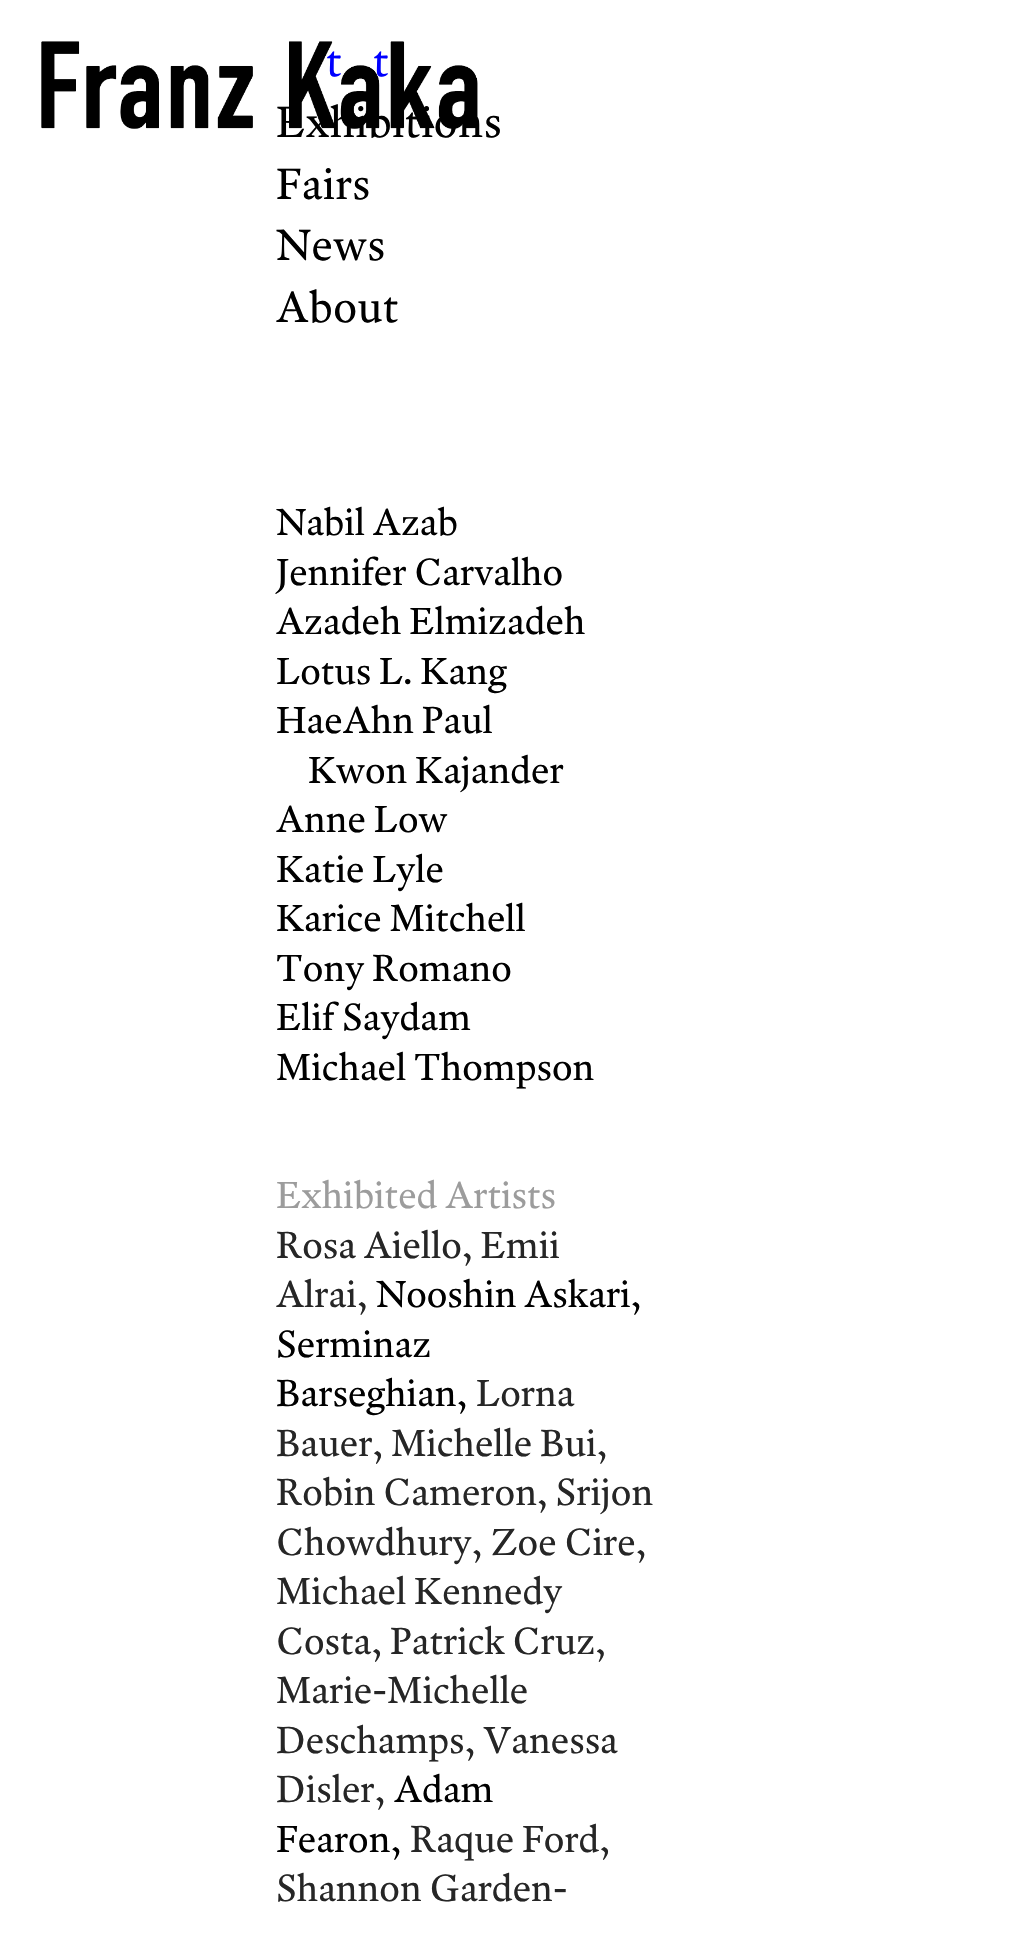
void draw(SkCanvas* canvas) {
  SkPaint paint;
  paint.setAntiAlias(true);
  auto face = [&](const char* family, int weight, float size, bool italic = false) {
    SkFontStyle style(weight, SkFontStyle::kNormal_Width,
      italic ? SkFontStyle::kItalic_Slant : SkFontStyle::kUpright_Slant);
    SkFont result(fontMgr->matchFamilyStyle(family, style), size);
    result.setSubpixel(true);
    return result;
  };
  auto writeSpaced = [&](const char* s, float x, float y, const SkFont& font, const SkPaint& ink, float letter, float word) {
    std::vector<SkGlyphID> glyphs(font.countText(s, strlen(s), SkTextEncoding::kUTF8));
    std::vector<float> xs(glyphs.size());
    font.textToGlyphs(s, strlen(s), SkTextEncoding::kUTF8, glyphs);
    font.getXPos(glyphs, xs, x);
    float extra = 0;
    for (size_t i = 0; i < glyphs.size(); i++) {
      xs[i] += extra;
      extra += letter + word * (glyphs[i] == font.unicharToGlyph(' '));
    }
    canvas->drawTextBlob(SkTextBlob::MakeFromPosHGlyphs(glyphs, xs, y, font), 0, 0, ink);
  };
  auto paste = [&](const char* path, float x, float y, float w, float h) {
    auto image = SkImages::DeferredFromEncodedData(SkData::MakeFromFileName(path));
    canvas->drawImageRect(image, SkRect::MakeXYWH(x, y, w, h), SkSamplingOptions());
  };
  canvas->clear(0xffffffff);
  auto f0 = face("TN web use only", 400, 44);
  paint.setColor(0xff0000ff);
  writeSpaced("t", 326, 76, f0, paint, 0.5f, 0);
  writeSpaced("t", 373, 76, f0, paint, 0.5f, 0);
  paint.setColor(0xff000000);
  writeSpaced("Exhibitions", 276, 137, f0, paint, 0.5f, 0);
  paste("img/1.png", 41, 41, 437, 88);
  {
    const struct { const char* s; float x, y; } items[] = {
      {"Fairs", 276, 199},
      {"News", 276, 260},
      {"About", 276, 322},
    };
    for (auto [s, x, y] : items) {
      writeSpaced(s, x, y, f0, paint, 0.5f, 0);
    }
  }
  auto f1 = face("TN web use only", 400, 38);
  {
    const struct { const char* s; float x, y; } items[] = {
      {"Nabil Azab", 276, 535},
      {"Jennifer Carvalho", 276, 585},
      {"Azadeh Elmizadeh", 276, 634},
      {"Lotus L. Kang", 276, 684},
      {"HaeAhn Paul", 276, 733},
      {"Kwon Kajander", 308, 783},
      {"Anne Low", 276, 832},
      {"Katie Lyle", 276, 882},
      {"Karice Mitchell", 276, 931},
      {"Tony Romano", 276, 981},
      {"Elif Saydam", 276, 1030},
      {"Michael Thompson", 276, 1080},
    };
    for (auto [s, x, y] : items) {
      canvas->drawString(s, x, y, f1, paint);
    }
  }
  paint.setColor(0xff9c9c9c);
  canvas->drawString("Exhibited Artists", 276, 1208, f1, paint);
  paint.setColor(0xff262626);
  canvas->drawString("Rosa Aiello, Emii", 276, 1258, f1, paint);
  canvas->drawString("Alrai,", 276, 1307, f1, paint);
  paint.setColor(0xff000000);
  {
    const struct { const char* s; float x, y; } items[] = {
      {"Nooshin Askari,", 376, 1307},
      {"Serminaz", 276, 1357},
      {"Barseghian,", 276, 1406},
    };
    for (auto [s, x, y] : items) {
      canvas->drawString(s, x, y, f1, paint);
    }
  }
  paint.setColor(0xff262626);
  {
    const struct { const char* s; float x, y; } items[] = {
      {"Lorna", 476, 1406},
      {"Bauer, Michelle Bui,", 276, 1456},
      {"Robin Cameron, Srijon", 276, 1505},
      {"Chowdhury, Zoe Cire,", 276, 1555},
      {"Michael Kennedy", 276, 1604},
      {"Costa, Patrick Cruz,", 276, 1654},
      {"Marie-Michelle", 276, 1703},
      {"Deschamps, Vanessa", 276, 1753},
      {"Disler,", 276, 1802},
    };
    for (auto [s, x, y] : items) {
      canvas->drawString(s, x, y, f1, paint);
    }
  }
  paint.setColor(0xff000000);
  canvas->drawString("Adam", 394, 1802, f1, paint);
  canvas->drawString("Fearon,", 276, 1852, f1, paint);
  paint.setColor(0xff262626);
  canvas->drawString("Raque Ford,", 410, 1852, f1, paint);
  canvas->drawString("Shannon Garden-", 276, 1901, f1, paint);
}
